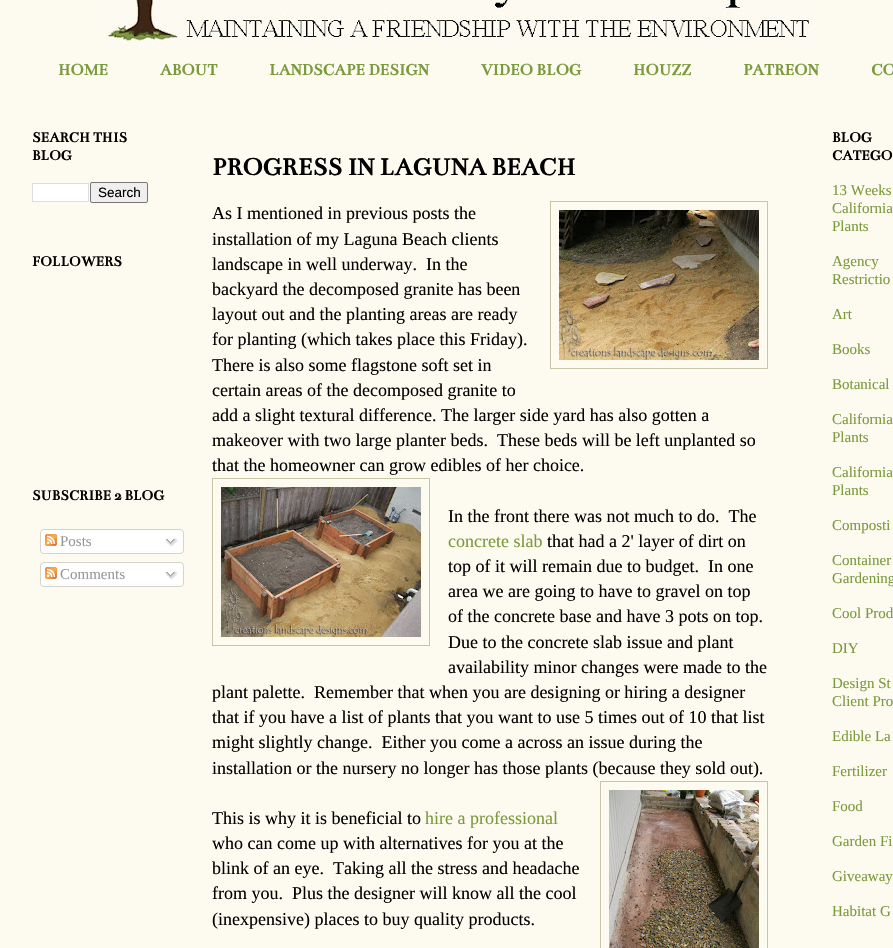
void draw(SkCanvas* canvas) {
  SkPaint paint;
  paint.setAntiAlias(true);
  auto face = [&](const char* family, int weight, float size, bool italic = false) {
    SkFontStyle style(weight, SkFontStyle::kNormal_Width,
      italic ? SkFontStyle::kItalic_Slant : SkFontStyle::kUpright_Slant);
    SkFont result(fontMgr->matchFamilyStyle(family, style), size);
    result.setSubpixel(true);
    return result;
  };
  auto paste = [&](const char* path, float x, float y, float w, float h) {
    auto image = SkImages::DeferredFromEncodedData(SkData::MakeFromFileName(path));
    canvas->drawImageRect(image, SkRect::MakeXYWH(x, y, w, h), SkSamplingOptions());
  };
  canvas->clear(0xfffdfaf0);
  paste("img/1.png", 105, 0, 711, 47);
  paint.setColor(0xffffffff);
  canvas->drawRect(SkRect::MakeXYWH(32.5f, 183.5f, 56, 18), paint);
  paint.setStroke(true);
  paint.setStrokeWidth(1);
  paint.setColor(0xffdddddd);
  canvas->drawRect(SkRect::MakeXYWH(32.5f, 183.5f, 56, 18), paint);
  paint.setStroke(false);
  paint.setColor(0xffefefef);
  canvas->drawRoundRect(SkRect::MakeXYWH(90.5f, 182.5f, 57, 20), 1.5f, 1.5f, paint);
  paint.setStroke(true);
  paint.setColor(0xff767676);
  canvas->drawRoundRect(SkRect::MakeXYWH(90.5f, 182.5f, 57, 20), 1.5f, 1.5f, paint);
  paste("img/2.png", 40, 529, 144, 22);
  paste("img/3.png", 45, 534, 12, 12);
  paste("img/4.png", 165, 538, 13, 9);
  paste("img/5.png", 40, 551, 144, 3);
  paste("img/2.png", 40, 562, 144, 22);
  paste("img/3.png", 45, 567, 12, 12);
  paste("img/4.png", 165, 571, 13, 9);
  paste("img/5.png", 40, 584, 144, 3);
  paint.setColor(0xffc9c6a6);
  canvas->drawRect(SkRect::MakeXYWH(550.5f, 201.5f, 217, 167), paint);
  paste("img/6.png", 559, 210, 200, 150);
  canvas->drawRect(SkRect::MakeXYWH(212.5f, 478.5f, 217, 167), paint);
  paste("img/7.png", 221, 487, 200, 150);
  canvas->drawRect(SkRect::MakeXYWH(600.5f, 781.5f, 167, 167), paint);
  paste("img/8.png", 609, 790, 150, 158);
  auto f0 = face("Bentham", 700, 17);
  paint.setStroke(false);
  paint.setColor(0xff7b9a3d);
  {
    const struct { const char* s; float x, y; } items[] = {
      {"HOME", 58, 75},
      {"ABOUT", 160, 75},
      {"LANDSCAPE DESIGN", 269, 75},
      {"VIDEO BLOG", 481, 75},
      {"HOUZZ", 633, 75},
      {"PATREON", 743, 75},
      {"CO", 871, 75},
    };
    for (auto [s, x, y] : items) {
      canvas->drawString(s, x, y, f0, paint);
    }
  }
  auto f1 = face("Bentham", 700, 15);
  paint.setColor(0xff000000);
  canvas->drawString("SEARCH THIS", 32, 142, f1, paint);
  canvas->drawString("BLOG", 32, 160, f1, paint);
  auto f2 = face("Liberation Sans", 400, 13.5f);
  canvas->drawString("Search", 98, 197, f2, paint);
  canvas->drawString("FOLLOWERS", 32, 266, f1, paint);
  canvas->drawString("SUBSCRIBE 2 BLOG", 32, 500, f1, paint);
  auto f3 = face("Liberation Serif", 400, 15);
  paint.setColor(0xff999999);
  canvas->drawString("Posts", 60, 546, f3, paint);
  canvas->drawString("Comments", 60, 579, f3, paint);
  auto f4 = face("Bentham", 700, 26);
  paint.setColor(0xff000000);
  canvas->drawString("PROGRESS IN LAGUNA BEACH", 212, 175, f4, paint);
  auto f5 = face("Liberation Serif", 400, 18);
  {
    const struct { const char* s; float x, y; } items[] = {
      {"As I mentioned in previous posts the", 212, 219},
      {"installation of my Laguna Beach clients", 212, 245},
      {"landscape in well underway.  In the", 212, 270},
      {"backyard the decomposed granite has been", 212, 295},
      {"layout out and the planting areas are ready", 212, 320},
      {"for planting (which takes place this Friday).", 212, 345},
      {"There is also some flagstone soft set in", 212, 371},
      {"certain areas of the decomposed granite to", 212, 396},
      {"add a slight textural difference. The larger side yard has also gotten a", 212, 421},
      {"makeover with two large planter beds.  These beds will be left unplanted so", 212, 446},
      {"that the homeowner can grow edibles of her choice.", 212, 471},
      {"In the front there was not much to do.  The", 448, 522},
    };
    for (auto [s, x, y] : items) {
      canvas->drawString(s, x, y, f5, paint);
    }
  }
  paint.setColor(0xff7b9a3d);
  canvas->drawString("concrete slab", 448, 547, f5, paint);
  paint.setColor(0xff000000);
  {
    const struct { const char* s; float x, y; } items[] = {
      {"that had a 2' layer of dirt on", 547, 547},
      {"top of it will remain due to budget.  In one", 448, 572},
      {"area we are going to have to gravel on top", 448, 597},
      {"of the concrete base and have 3 pots on top.", 448, 622},
      {"Due to the concrete slab issue and plant", 448, 648},
      {"availability minor changes were made to the", 448, 673},
      {"plant palette.  Remember that when you are designing or hiring a designer", 212, 698},
      {"that if you have a list of plants that you want to use 5 times out of 10 that list", 212, 723},
      {"might slightly change.  Either you come a across an issue during the", 212, 748},
      {"installation or the nursery no longer has those plants (because they sold out).", 212, 774},
      {"This is why it is beneficial to", 212, 824},
    };
    for (auto [s, x, y] : items) {
      canvas->drawString(s, x, y, f5, paint);
    }
  }
  paint.setColor(0xff7b9a3d);
  canvas->drawString("hire a professional", 425, 824, f5, paint);
  paint.setColor(0xff000000);
  {
    const struct { const char* s; float x, y; } items[] = {
      {"who can come up with alternatives for you at the", 212, 849},
      {"blink of an eye.  Taking all the stress and headache", 212, 874},
      {"from you.  Plus the designer will know all the cool", 212, 899},
      {"(inexpensive) places to buy quality products.", 212, 925},
    };
    for (auto [s, x, y] : items) {
      canvas->drawString(s, x, y, f5, paint);
    }
  }
  canvas->drawString("BLOG", 832, 142, f1, paint);
  canvas->drawString("CATEGO", 832, 160, f1, paint);
  paint.setColor(0xff7b9a3d);
  {
    const struct { const char* s; float x, y; } items[] = {
      {"13 Weeks", 832, 195},
      {"California", 832, 213},
      {"Plants", 832, 231},
      {"Agency", 832, 266},
      {"Restrictio", 832, 284},
      {"Art", 832, 319},
      {"Books", 832, 354},
      {"Botanical", 832, 389},
      {"California", 832, 424},
      {"Plants", 832, 442},
      {"California", 832, 477},
      {"Plants", 832, 495},
      {"Composti", 832, 530},
      {"Container", 832, 565},
      {"Gardening", 832, 583},
      {"Cool Prod", 832, 618},
      {"DIY", 832, 653},
      {"Design St", 832, 688},
      {"Client Pro", 832, 706},
      {"Edible La", 832, 741},
      {"Fertilizer", 832, 776},
      {"Food", 832, 811},
      {"Garden Fi", 832, 846},
      {"Giveaway", 832, 881},
      {"Habitat G", 832, 916},
    };
    for (auto [s, x, y] : items) {
      canvas->drawString(s, x, y, f3, paint);
    }
  }
}
